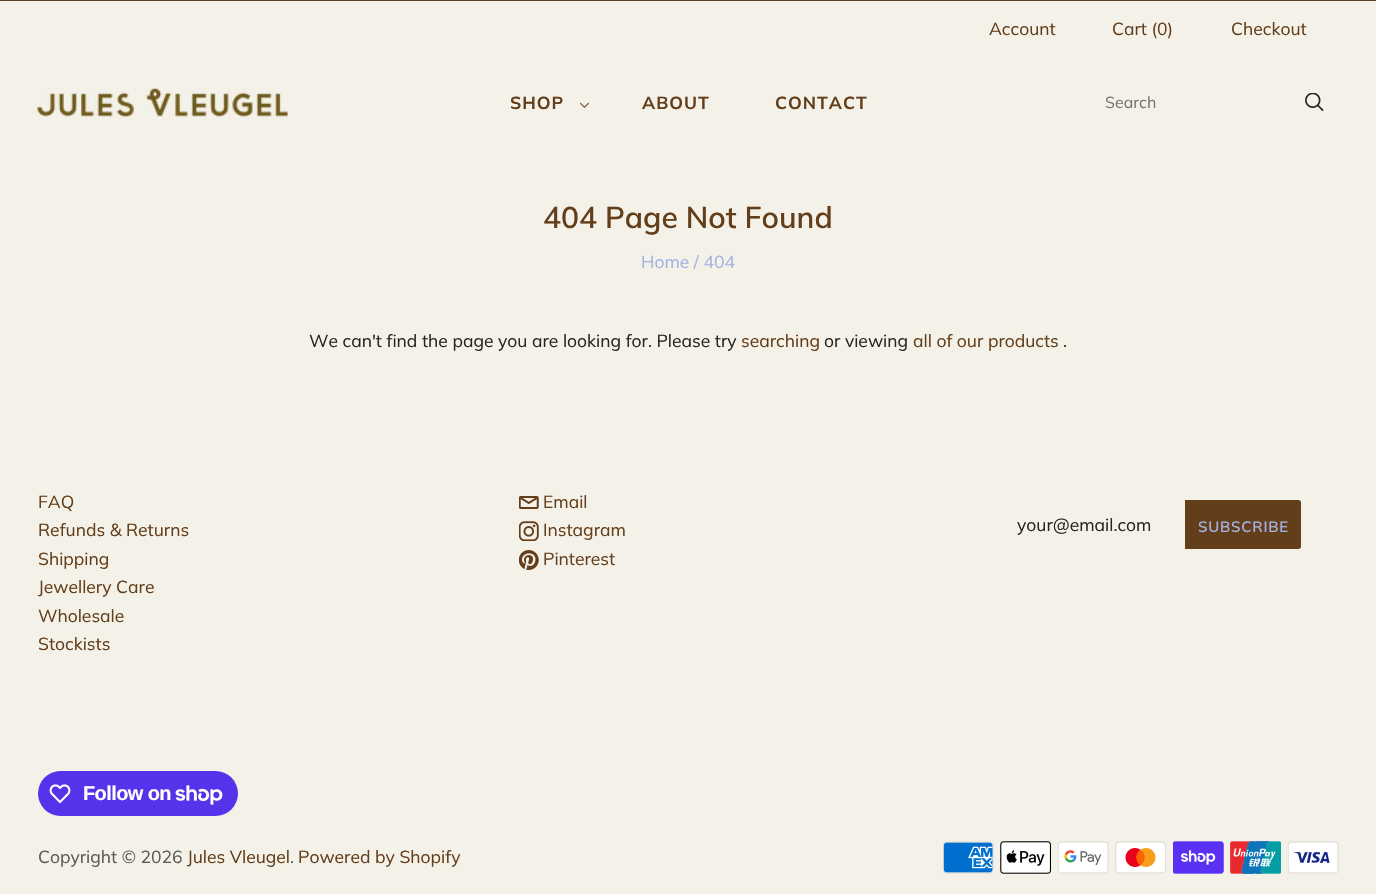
void draw(SkCanvas* canvas) {
  SkPaint paint;
  paint.setAntiAlias(true);
  auto face = [&](const char* family, int weight, float size, bool italic = false) {
    SkFontStyle style(weight, SkFontStyle::kNormal_Width,
      italic ? SkFontStyle::kItalic_Slant : SkFontStyle::kUpright_Slant);
    SkFont result(fontMgr->matchFamilyStyle(family, style), size);
    result.setSubpixel(true);
    return result;
  };
  auto writeSpaced = [&](const char* s, float x, float y, const SkFont& font, const SkPaint& ink, float letter, float word) {
    std::vector<SkGlyphID> glyphs(font.countText(s, strlen(s), SkTextEncoding::kUTF8));
    std::vector<float> xs(glyphs.size());
    font.textToGlyphs(s, strlen(s), SkTextEncoding::kUTF8, glyphs);
    font.getXPos(glyphs, xs, x);
    float extra = 0;
    for (size_t i = 0; i < glyphs.size(); i++) {
      xs[i] += extra;
      extra += letter + word * (glyphs[i] == font.unicharToGlyph(' '));
    }
    canvas->drawTextBlob(SkTextBlob::MakeFromPosHGlyphs(glyphs, xs, y, font), 0, 0, ink);
  };
  auto paste = [&](const char* path, float x, float y, float w, float h) {
    auto image = SkImages::DeferredFromEncodedData(SkData::MakeFromFileName(path));
    canvas->drawImageRect(image, SkRect::MakeXYWH(x, y, w, h), SkSamplingOptions());
  };
  auto shape = [&](const char* data, bool evenOdd = false) {
    SkPath result = *SkParsePath::FromSVGString(data);
    if (evenOdd) result.setFillType(SkPathFillType::kEvenOdd);
    return result;
  };
  canvas->clear(0xfff4f1e8);
  paint.setColor(0xff633e1a);
  canvas->drawRect(SkRect::MakeXYWH(0, 0, 1376, 1), paint);
  paste("img/1.png", 37, 88, 251, 29);
  paste("img/2.png", 580, 102, 9, 6);
  paste("img/3.png", 1305, 93, 19, 18);
  paste("img/4.png", 519, 496, 20, 13);
  paste("img/5.png", 519, 521, 20, 20);
  paste("img/6.png", 519, 550, 20, 20);
  canvas->drawPath(shape("M1185 500H1298.5C1300 500 1301 501 1301 502.5V546.5C1301 548 1300 549 1298.5 549H1185Z"), paint);
  paint.setColor(0xff5433eb);
  canvas->drawRoundRect(SkRect::MakeXYWH(38, 771, 200, 45), 22.5f, 22.5f, paint);
  paste("img/7.png", 49, 784, 22, 20);
  paste("img/8.png", 175, 785, 48, 20);
  paste("img/9.png", 943, 841, 51, 33);
  paste("img/10.png", 1000, 841, 51, 33);
  paste("img/11.png", 1058, 841, 51, 33);
  paste("img/12.png", 1115, 841, 51, 33);
  paste("img/13.png", 1173, 841, 51, 33);
  paste("img/14.png", 1230, 841, 51, 33);
  paste("img/15.png", 1288, 841, 51, 33);
  auto f0 = face("Muli", 400, 17.5f);
  paint.setColor(0xff633e1a);
  {
    const struct { const char* s; float x, y; } items[] = {
      {"Account", 989, 35},
      {"Cart (0)", 1112, 35},
      {"Checkout", 1231, 35},
    };
    for (auto [s, x, y] : items) {
      canvas->drawString(s, x, y, f0, paint);
    }
  }
  auto f1 = face("Muli", 700, 17.5f);
  {
    const struct { const char* s; float x, y; } items[] = {
      {"SHOP", 510, 109},
      {"ABOUT", 642, 109},
      {"CONTACT", 775, 109},
    };
    for (auto [s, x, y] : items) {
      writeSpaced(s, x, y, f1, paint, 1, 0);
    }
  }
  auto f2 = face("Muli", 400, 16);
  paint.setColor(0xff757575);
  canvas->drawString("Search", 1105, 108, f2, paint);
  auto f3 = face("Muli", 600, 30);
  paint.setColor(0xff633e1a);
  canvas->drawString("404 Page Not Found", 543, 228, f3, paint);
  paint.setColor(0xffa3b2e2);
  canvas->drawString("Home / 404", 641, 268, f0, paint);
  paint.setColor(0xff262626);
  canvas->drawString("We can't find the page you are looking for. Please try", 309, 347, f0, paint);
  paint.setColor(0xff633e1a);
  canvas->drawString("searching", 741, 347, f0, paint);
  paint.setColor(0xff262626);
  canvas->drawString("or viewing", 824, 347, f0, paint);
  paint.setColor(0xff633e1a);
  canvas->drawString("all of our products", 913, 347, f0, paint);
  paint.setColor(0xff262626);
  canvas->drawString(".", 1063, 347, f0, paint);
  paint.setColor(0xff633e1a);
  {
    const struct { const char* s; float x, y; } items[] = {
      {"FAQ", 38, 508},
      {"Refunds & Returns", 38, 536},
      {"Shipping", 38, 565},
      {"Jewellery Care", 38, 593},
      {"Wholesale", 38, 622},
      {"Stockists", 38, 650},
      {"Email", 543, 508},
      {"Instagram", 543, 536},
      {"Pinterest", 543, 565},
    };
    for (auto [s, x, y] : items) {
      canvas->drawString(s, x, y, f0, paint);
    }
  }
  paint.setColor(0xff262626);
  canvas->drawString("your@email.com", 1017, 531, f0, paint);
  auto f4 = face("Muli", 600, 15);
  paint.setColor(0xffa3b2e2);
  writeSpaced("SUBSCRIBE", 1198, 532, f4, paint, 0.75f, 0);
  auto f5 = face("Liberation Sans", 700, 20);
  paint.setColor(0xffffffff);
  writeSpaced("Follow on", 83, 800, f5, paint, -0.6f, 0);
  paint.setColor(0xff5a5957);
  canvas->drawString("Copyright © 2026", 38, 863, f0, paint);
  paint.setColor(0xff633e1a);
  canvas->drawString("Jules Vleugel", 187, 863, f0, paint);
  paint.setColor(0xff5a5957);
  canvas->drawString(".", 290, 863, f0, paint);
  paint.setColor(0xff633e1a);
  canvas->drawString("Powered by Shopify", 298, 863, f0, paint);
}
